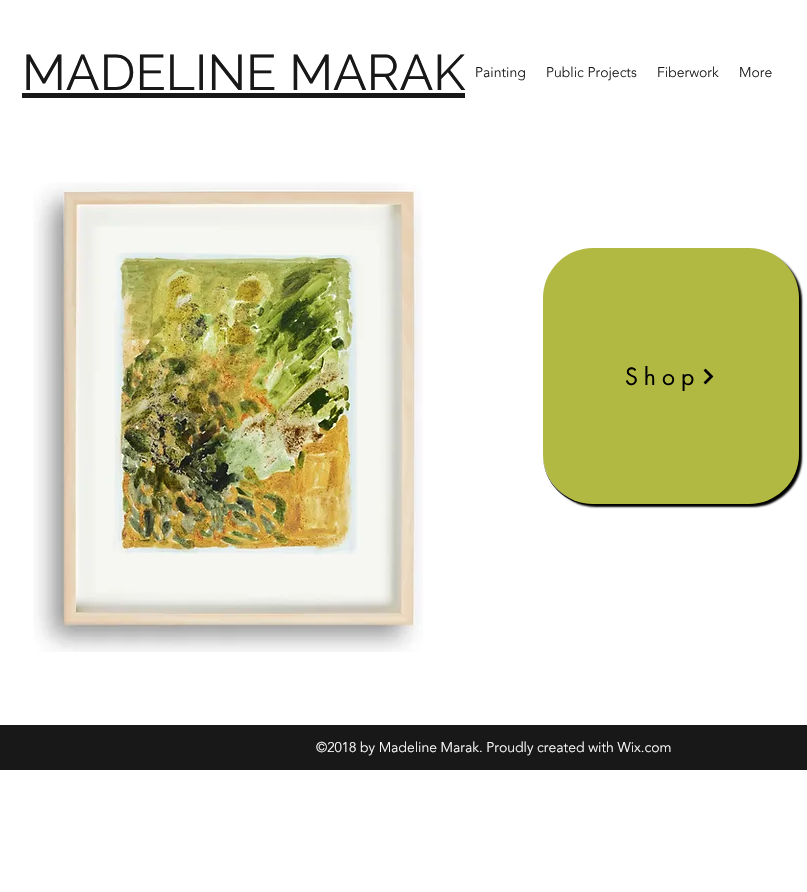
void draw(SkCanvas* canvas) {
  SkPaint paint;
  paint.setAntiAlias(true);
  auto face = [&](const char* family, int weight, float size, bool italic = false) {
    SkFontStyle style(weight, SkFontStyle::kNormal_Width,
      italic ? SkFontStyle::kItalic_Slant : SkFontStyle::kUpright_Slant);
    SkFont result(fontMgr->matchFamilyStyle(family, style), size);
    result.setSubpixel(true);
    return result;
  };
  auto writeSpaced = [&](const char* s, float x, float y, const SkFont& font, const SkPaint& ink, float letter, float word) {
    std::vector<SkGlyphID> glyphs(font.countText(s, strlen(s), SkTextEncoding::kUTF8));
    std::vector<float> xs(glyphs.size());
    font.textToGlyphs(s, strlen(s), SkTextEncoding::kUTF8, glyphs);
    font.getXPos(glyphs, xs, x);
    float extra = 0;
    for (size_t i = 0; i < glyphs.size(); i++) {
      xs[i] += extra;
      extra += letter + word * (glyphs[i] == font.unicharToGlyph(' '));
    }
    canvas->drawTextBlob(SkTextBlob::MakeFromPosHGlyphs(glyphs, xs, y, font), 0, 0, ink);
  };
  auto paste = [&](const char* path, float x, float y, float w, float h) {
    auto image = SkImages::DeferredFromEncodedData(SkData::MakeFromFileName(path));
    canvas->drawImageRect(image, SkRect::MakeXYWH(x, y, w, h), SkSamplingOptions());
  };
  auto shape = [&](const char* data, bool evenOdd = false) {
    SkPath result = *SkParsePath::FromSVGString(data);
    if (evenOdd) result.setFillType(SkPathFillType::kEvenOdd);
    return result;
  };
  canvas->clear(0xffffffff);
  paint.setColor(0xff181818);
  canvas->drawRect(SkRect::MakeXYWH(22, 93, 443, 5), paint);
  paste("img/1.png", 33, 182, 390, 470);
  paint.setColor(0xff0e1821);
  canvas->drawPath(shape("M543 454V455C543 483 565 505 593 505H749C777 505 799 483 799 455V454C799 482 777 504 749 504H593C565 504 543 482 543 454Z"), paint);
  paint.setColor(0xff000000);
  paint.setMaskFilter(SkMaskFilter::MakeBlur(kNormal_SkBlurStyle, 1));
  canvas->drawRoundRect(SkRect::MakeXYWH(546, 251, 256, 256), 50, 50, paint);
  paint.setMaskFilter(nullptr);
  paint.setColor(0xffb2b943);
  canvas->drawRoundRect(SkRect::MakeXYWH(543, 248, 256, 256), 50, 50, paint);
  paste("img/2.png", 703, 368, 11, 17);
  paint.setColor(0xff181818);
  canvas->drawRect(SkRect::MakeXYWH(0, 725, 807, 45), paint);
  auto f0 = face("Raleway", 400, 50);
  canvas->drawString("MADELINE MARAK", 22, 90, f0, paint);
  auto f1 = face("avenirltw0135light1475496", 300, 14);
  {
    const struct { const char* s; float x, y; } items[] = {
      {"Painting", 475, 77},
      {"Public Projects", 546, 77},
      {"Fiberwork", 657, 77},
      {"More", 739, 77},
    };
    for (auto [s, x, y] : items) {
      canvas->drawString(s, x, y, f1, paint);
    }
  }
  auto f2 = face("futura", 400, 23);
  paint.setColor(0xff000000);
  writeSpaced("Shop", 625, 385, f2, paint, 6, 0);
  paint.setColor(0xffffffff);
  canvas->drawString("©2018 by Madeline Marak. Proudly created with Wix.com", 316, 752, f1, paint);
}
